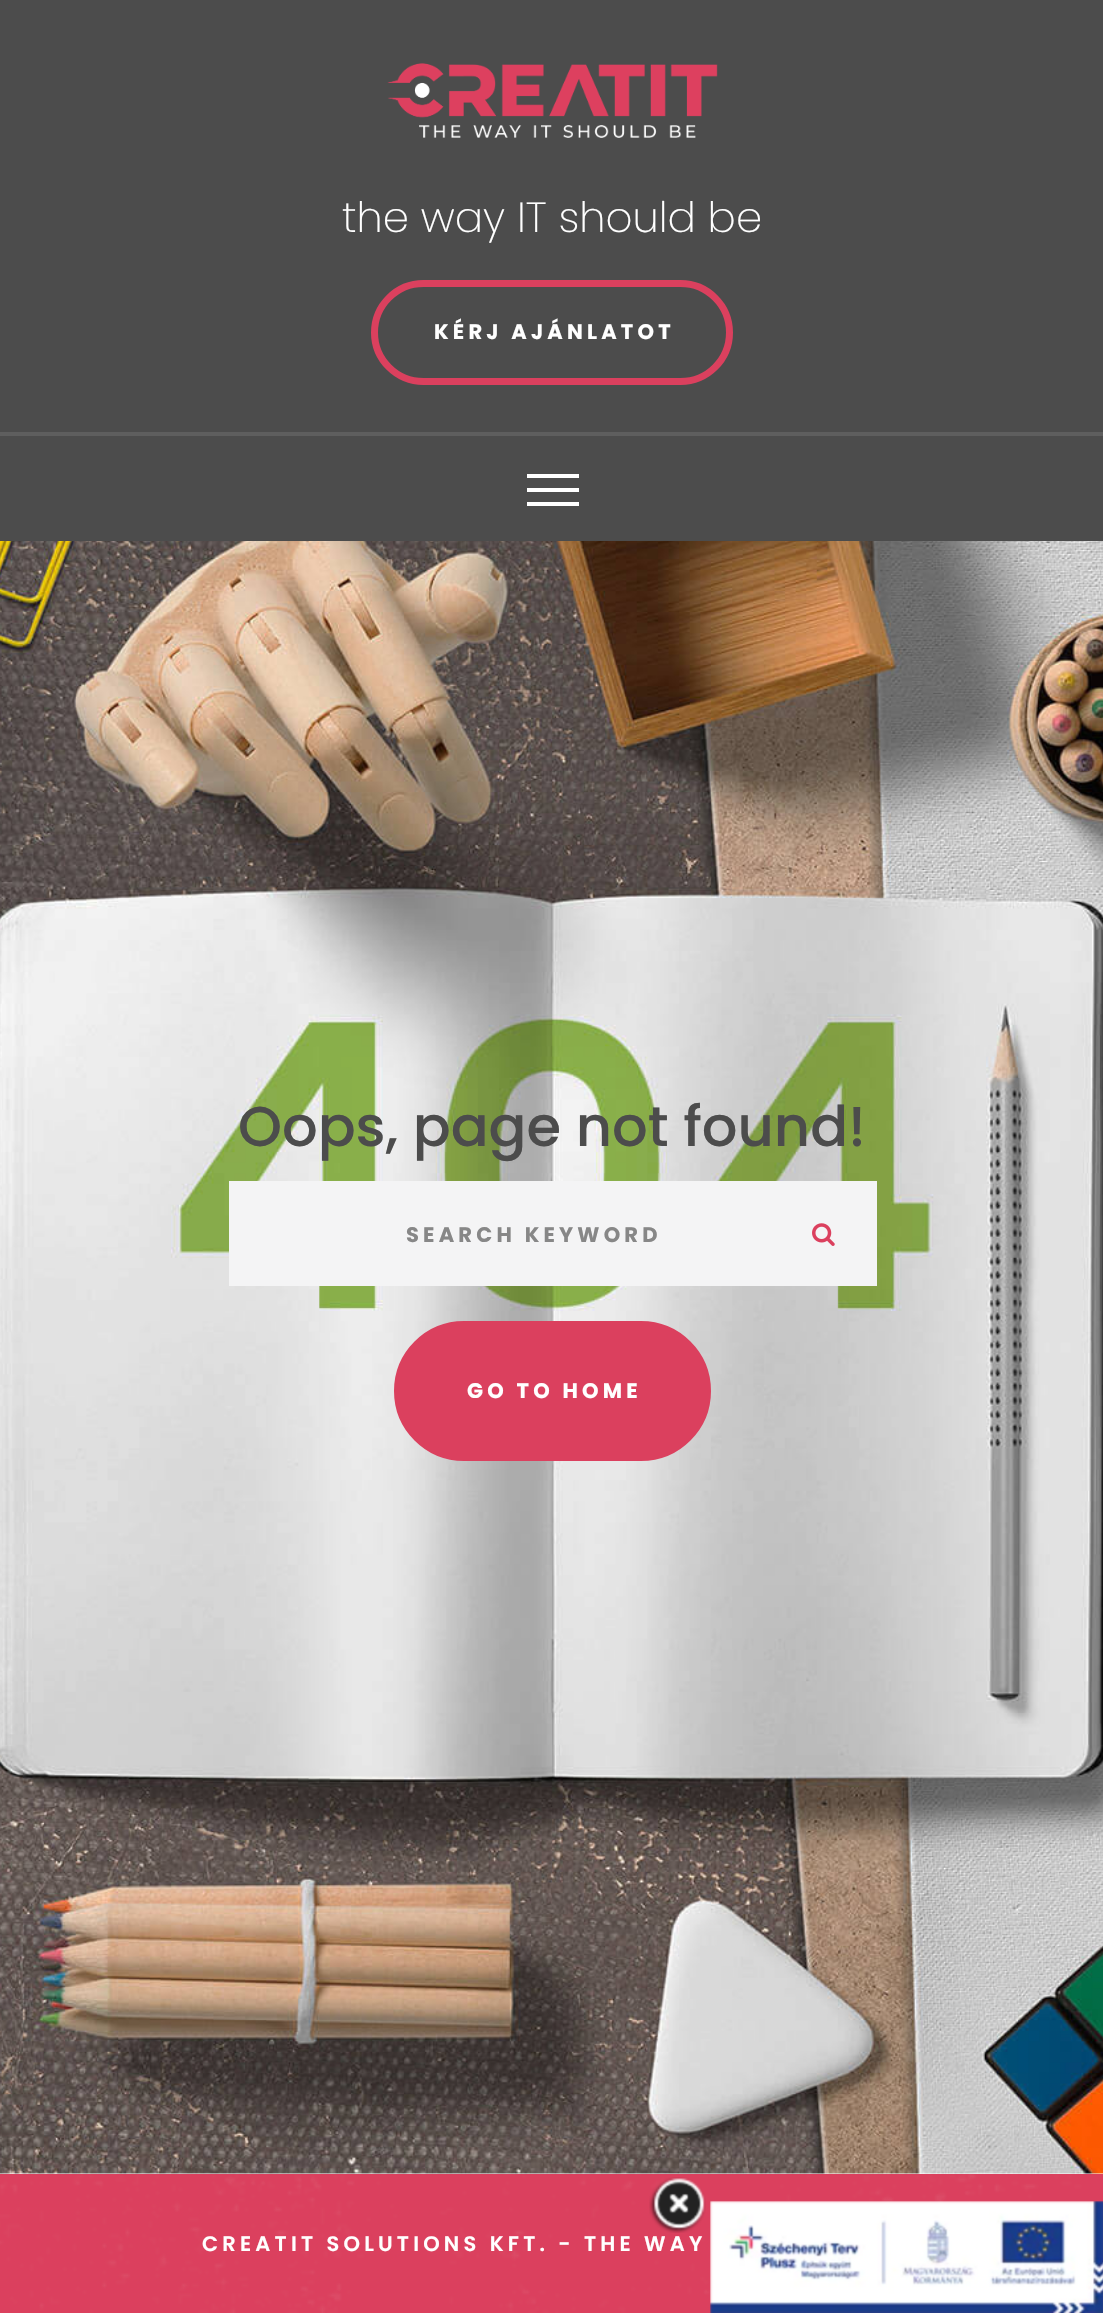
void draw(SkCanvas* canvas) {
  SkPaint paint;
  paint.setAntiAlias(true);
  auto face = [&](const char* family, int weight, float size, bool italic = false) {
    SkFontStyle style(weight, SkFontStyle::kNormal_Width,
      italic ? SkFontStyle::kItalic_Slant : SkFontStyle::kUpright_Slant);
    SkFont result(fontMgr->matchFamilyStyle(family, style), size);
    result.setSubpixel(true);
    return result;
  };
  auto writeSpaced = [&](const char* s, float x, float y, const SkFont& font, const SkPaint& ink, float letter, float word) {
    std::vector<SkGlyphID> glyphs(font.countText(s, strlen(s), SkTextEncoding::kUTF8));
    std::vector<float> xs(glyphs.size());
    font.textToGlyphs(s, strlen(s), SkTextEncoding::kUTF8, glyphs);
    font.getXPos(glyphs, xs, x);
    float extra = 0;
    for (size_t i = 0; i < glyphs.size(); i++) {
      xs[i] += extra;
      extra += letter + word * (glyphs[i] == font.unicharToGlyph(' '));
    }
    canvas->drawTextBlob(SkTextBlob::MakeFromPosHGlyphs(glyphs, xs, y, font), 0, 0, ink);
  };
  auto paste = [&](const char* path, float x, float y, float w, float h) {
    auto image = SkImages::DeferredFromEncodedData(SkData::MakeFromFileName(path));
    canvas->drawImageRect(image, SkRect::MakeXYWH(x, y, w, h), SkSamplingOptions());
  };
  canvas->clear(0xffffffff);
  paint.setColor(0xff4c4c4c);
  canvas->drawRect(SkRect::MakeXYWH(0, 0, 1103, 432), paint);
  paste("img/1.png", 387, 63, 331, 75);
  paint.setStroke(true);
  paint.setStrokeWidth(7);
  paint.setColor(0xffdb405e);
  canvas->drawRoundRect(SkRect::MakeXYWH(374.5f, 283.5f, 355, 98), 49, 49, paint);
  paint.setStroke(false);
  {
    const struct { float x, y, w, h; SkColor color; } items[] = {
      {0, 432, 1103, 4, 0xff5e5e5e},
      {0, 436, 1103, 105, 0xff4c4c4c},
      {527, 488, 52, 4, 0xffffffff},
      {527, 474, 52, 4, 0xffffffff},
      {527, 502, 52, 4, 0xffffffff},
    };
    for (auto [x, y, w, h, color] : items) {
      paint.setColor(color);
      canvas->drawRect(SkRect::MakeXYWH(x, y, w, h), paint);
    }
  }
  paste("img/2.png", 0, 541, 1103, 1633);
  paint.setColor(0xfff4f4f5);
  canvas->drawRect(SkRect::MakeXYWH(229, 1181, 648, 105), paint);
  paste("img/3.png", 812, 1223, 23, 23);
  paint.setColor(0xffdb405e);
  canvas->drawRoundRect(SkRect::MakeXYWH(397.5f, 1324.5f, 310, 133), 66.5f, 66.5f, paint);
  paint.setStroke(true);
  canvas->drawRoundRect(SkRect::MakeXYWH(397.5f, 1324.5f, 310, 133), 66.5f, 66.5f, paint);
  paint.setStroke(false);
  canvas->drawRect(SkRect::MakeXYWH(0, 2174, 1103, 139), paint);
  paste("img/4.png", 0, 2174, 1102, 139);
  paste("img/5.png", 649, 2177, 57, 56);
  paste("img/6.png", 710, 2201, 393, 112);
  auto f0 = face("Poppins", 200, 42);
  paint.setColor(0xffffffff);
  canvas->drawString("the way IT should be", 342, 232, f0, paint);
  auto f1 = face("Poppins", 700, 21);
  writeSpaced("KÉRJ AJÁNLATOT", 434, 339, f1, paint, 4.2f, 0);
  auto f2 = face("Poppins", 500, 56);
  paint.setColor(0xff4c4c4c);
  canvas->drawString("Oops, page not found!", 238, 1146, f2, paint);
  paint.setColor(0xff878787);
  writeSpaced("SEARCH KEYWORD", 406, 1242, f1, paint, 4.2f, 0);
  paint.setColor(0xffffffff);
  writeSpaced("GO TO HOME", 467, 1398, f1, paint, 4.2f, 0);
  auto f3 = face("Poppins", 600, 21);
  writeSpaced("CREATIT SOLUTIONS KFT. - THE WAY", 202, 2251, f3, paint, 4.2f, 0);
}
